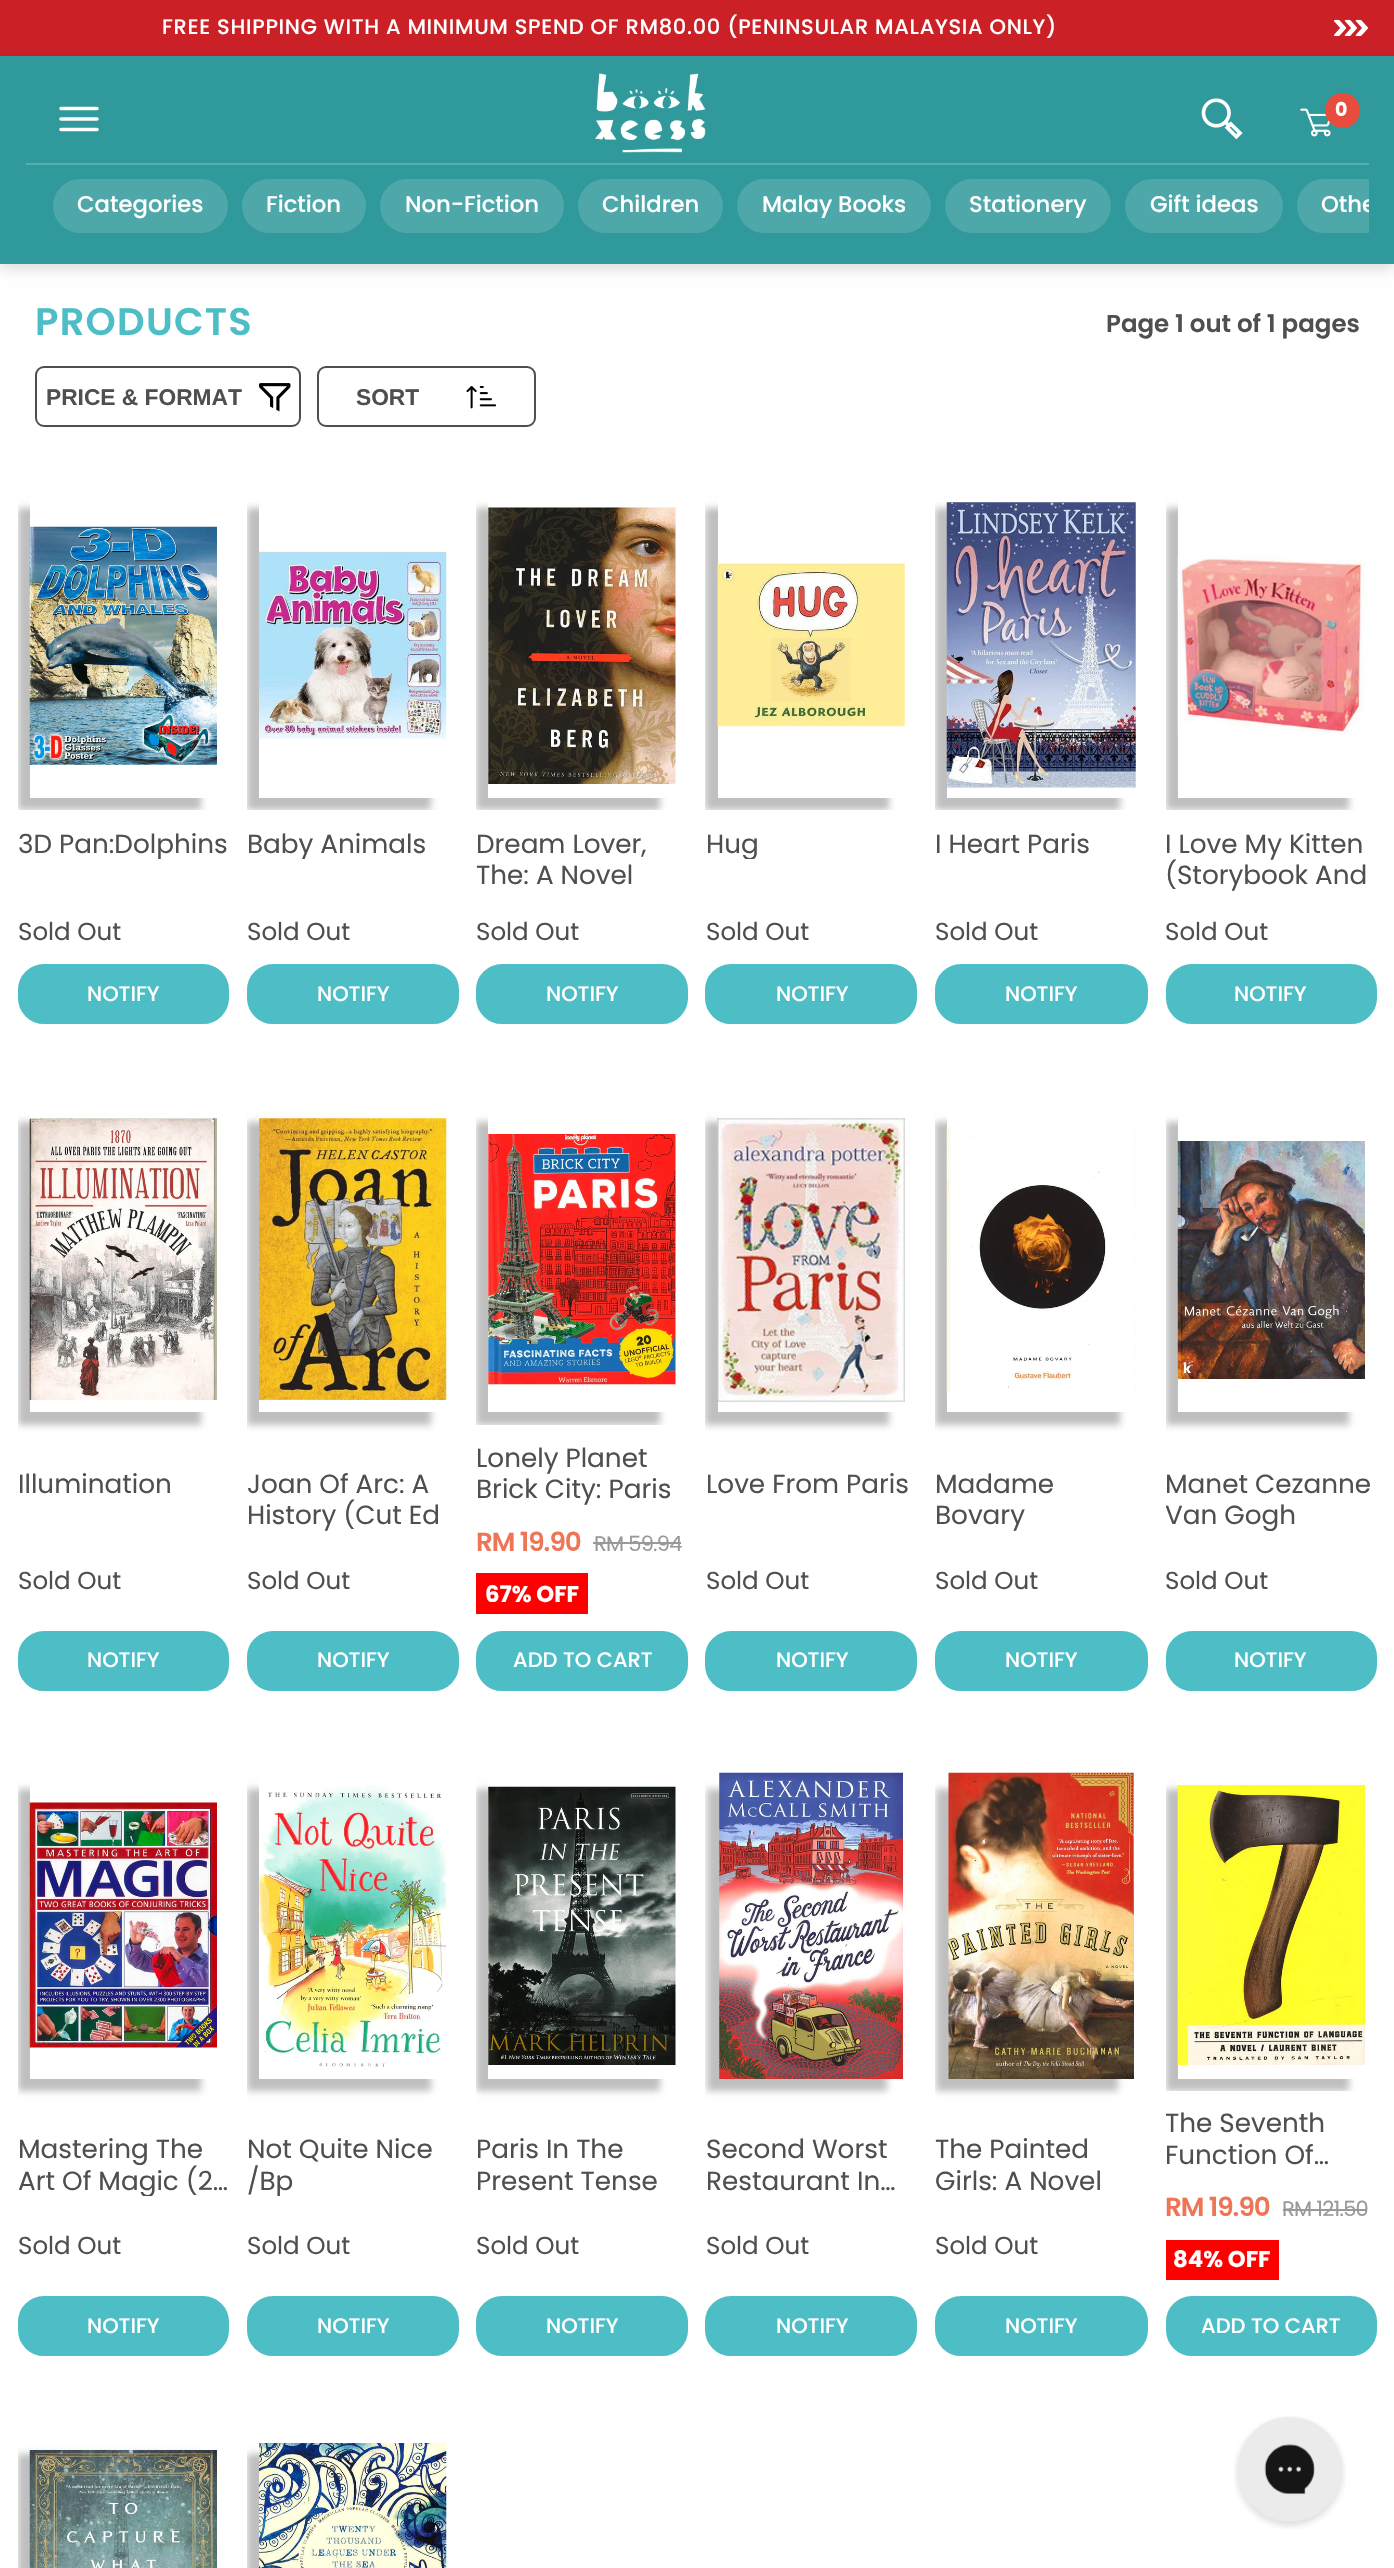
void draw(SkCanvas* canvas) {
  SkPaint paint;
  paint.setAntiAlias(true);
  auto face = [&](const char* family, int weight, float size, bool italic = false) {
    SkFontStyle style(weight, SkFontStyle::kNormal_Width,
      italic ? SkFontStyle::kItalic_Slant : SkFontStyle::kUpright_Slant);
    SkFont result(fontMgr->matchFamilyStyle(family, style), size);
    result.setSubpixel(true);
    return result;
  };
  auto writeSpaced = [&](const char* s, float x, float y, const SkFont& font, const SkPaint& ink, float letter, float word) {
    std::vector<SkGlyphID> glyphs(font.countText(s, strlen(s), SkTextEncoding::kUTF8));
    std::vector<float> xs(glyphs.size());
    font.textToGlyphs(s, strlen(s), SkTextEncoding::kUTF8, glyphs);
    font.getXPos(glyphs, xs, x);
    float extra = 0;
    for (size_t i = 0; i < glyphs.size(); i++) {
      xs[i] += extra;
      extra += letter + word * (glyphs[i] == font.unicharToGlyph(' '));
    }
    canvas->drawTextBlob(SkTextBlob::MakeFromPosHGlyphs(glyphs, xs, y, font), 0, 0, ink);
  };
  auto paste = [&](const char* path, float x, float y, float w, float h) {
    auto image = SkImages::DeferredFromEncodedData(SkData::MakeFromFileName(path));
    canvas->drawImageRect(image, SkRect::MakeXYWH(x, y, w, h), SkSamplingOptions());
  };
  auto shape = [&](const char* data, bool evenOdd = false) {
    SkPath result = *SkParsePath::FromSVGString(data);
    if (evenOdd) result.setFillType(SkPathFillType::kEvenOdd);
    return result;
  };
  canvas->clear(0xffffffff);
  paint.setColor(0xffcc2027);
  canvas->drawRect(SkRect::MakeXYWH(0, 0, 1394, 56), paint);
  paste("img/1.png", 1334, 19, 34, 17);
  paint.setColor(0x26000000);
  paint.setMaskFilter(SkMaskFilter::MakeBlur(kNormal_SkBlurStyle, 7));
  canvas->drawRect(SkRect::MakeXYWH(0, 60, 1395, 208), paint);
  paint.setMaskFilter(nullptr);
  paint.setColor(0xff2f999b);
  canvas->drawRect(SkRect::MakeXYWH(0, 56, 1394, 208), paint);
  paint.setStroke(true);
  paint.setStrokeWidth(3.6f);
  paint.setStrokeCap(SkPaint::kRound_Cap);
  paint.setColor(0xffffffff);
  canvas->drawPath(shape("M61 108.5H97M61 119H97M61 129.5H97"), paint);
  paste("img/2.png", 595, 73, 111, 80);
  paste("img/3.png", 1201, 98, 42, 42);
  paste("img/4.png", 1300, 108, 31, 29);
  paint.setStroke(false);
  paint.setColor(0xffe74c3c);
  canvas->drawCircle(1342.5f, 110.5f, 17.5f, paint);
  paint.setColor(0xff59adaf);
  canvas->drawRect(SkRect::MakeXYWH(26, 163, 1343, 2), paint);
  paint.setColor(0xff4ea8aa);
  canvas->drawRoundRect(SkRect::MakeXYWH(53, 179, 175, 54), 27, 27, paint);
  canvas->drawRoundRect(SkRect::MakeXYWH(242, 179, 124, 54), 27, 27, paint);
  canvas->drawRoundRect(SkRect::MakeXYWH(380, 179, 184, 54), 27, 27, paint);
  canvas->drawRoundRect(SkRect::MakeXYWH(578, 179, 145, 54), 27, 27, paint);
  canvas->drawRoundRect(SkRect::MakeXYWH(737, 179, 194, 54), 27, 27, paint);
  canvas->drawRoundRect(SkRect::MakeXYWH(945, 179, 166, 54), 27, 27, paint);
  canvas->drawRoundRect(SkRect::MakeXYWH(1125, 179, 158, 54), 27, 27, paint);
  canvas->drawPath(shape("M1324 179H1369V233H1324C1309 233 1297 221 1297 206C1297 191 1309 179 1324 179Z"), paint);
  paint.setStroke(true);
  paint.setStrokeWidth(2);
  paint.setStrokeCap(SkPaint::kButt_Cap);
  paint.setColor(0xff504f4f);
  canvas->drawRoundRect(SkRect::MakeXYWH(36, 367, 264, 59), 8, 8, paint);
  paste("img/5.png", 259, 383, 32, 29);
  canvas->drawRoundRect(SkRect::MakeXYWH(318, 367, 217, 59), 8, 8, paint);
  paste("img/6.png", 466, 386, 30, 23);
  canvas->save();
  canvas->clipRect(SkRect::MakeXYWH(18, 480, 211, 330));
  canvas->clipPath(shape("M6 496H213V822H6ZM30 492H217V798H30Z", true), true);
  paint.setStroke(false);
  paint.setColor(0x40000000);
  paint.setMaskFilter(SkMaskFilter::MakeBlur(kNormal_SkBlurStyle, 3.5f));
  canvas->drawRect(SkRect::MakeXYWH(18, 508, 183, 302), paint);
  paint.setMaskFilter(nullptr);
  canvas->restore();
  paste("img/7.png", 29, 526, 188, 239);
  paint.setColor(0xff4dbdc6);
  canvas->drawRoundRect(SkRect::MakeXYWH(19, 965, 209, 58), 25, 25, paint);
  paint.setStroke(true);
  canvas->drawRoundRect(SkRect::MakeXYWH(19, 965, 209, 58), 25, 25, paint);
  canvas->save();
  canvas->clipRect(SkRect::MakeXYWH(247, 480, 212, 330));
  canvas->clipPath(shape("M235 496H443V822H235ZM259 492H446V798H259Z", true), true);
  paint.setStroke(false);
  paint.setColor(0x40000000);
  paint.setMaskFilter(SkMaskFilter::MakeBlur(kNormal_SkBlurStyle, 3.5f));
  canvas->drawRect(SkRect::MakeXYWH(247, 508, 184, 302), paint);
  paint.setMaskFilter(nullptr);
  canvas->restore();
  paste("img/8.png", 259, 551, 188, 188);
  paint.setColor(0xff4dbdc6);
  canvas->drawRoundRect(SkRect::MakeXYWH(248, 965, 210, 58), 25, 25, paint);
  paint.setStroke(true);
  canvas->drawRoundRect(SkRect::MakeXYWH(248, 965, 210, 58), 25, 25, paint);
  canvas->save();
  canvas->clipRect(SkRect::MakeXYWH(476, 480, 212, 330));
  canvas->clipPath(shape("M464 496H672V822H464ZM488 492H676V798H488Z", true), true);
  paint.setStroke(false);
  paint.setColor(0x40000000);
  paint.setMaskFilter(SkMaskFilter::MakeBlur(kNormal_SkBlurStyle, 3.5f));
  canvas->drawRect(SkRect::MakeXYWH(476, 508, 184, 302), paint);
  paint.setMaskFilter(nullptr);
  canvas->restore();
  paste("img/9.png", 488, 507, 188, 277);
  paint.setColor(0xff4dbdc6);
  canvas->drawRoundRect(SkRect::MakeXYWH(477, 965, 210, 58), 25, 25, paint);
  paint.setStroke(true);
  canvas->drawRoundRect(SkRect::MakeXYWH(477, 965, 210, 58), 25, 25, paint);
  canvas->save();
  canvas->clipRect(SkRect::MakeXYWH(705, 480, 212, 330));
  canvas->clipPath(shape("M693 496H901V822H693ZM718 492H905V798H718Z", true), true);
  paint.setStroke(false);
  paint.setColor(0x40000000);
  paint.setMaskFilter(SkMaskFilter::MakeBlur(kNormal_SkBlurStyle, 3.5f));
  canvas->drawRect(SkRect::MakeXYWH(705, 508, 184, 302), paint);
  paint.setMaskFilter(nullptr);
  canvas->restore();
  paste("img/10.png", 717, 563, 188, 164);
  paint.setColor(0xff4dbdc6);
  canvas->drawRoundRect(SkRect::MakeXYWH(706, 965, 210, 58), 25, 25, paint);
  paint.setStroke(true);
  canvas->drawRoundRect(SkRect::MakeXYWH(706, 965, 210, 58), 25, 25, paint);
  canvas->save();
  canvas->clipRect(SkRect::MakeXYWH(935, 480, 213, 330));
  canvas->clipPath(shape("M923 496H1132V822H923ZM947 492H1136V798H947Z", true), true);
  paint.setStroke(false);
  paint.setColor(0x40000000);
  paint.setMaskFilter(SkMaskFilter::MakeBlur(kNormal_SkBlurStyle, 3.5f));
  canvas->drawRect(SkRect::MakeXYWH(935, 508, 185, 302), paint);
  paint.setMaskFilter(nullptr);
  canvas->restore();
  paste("img/11.png", 946, 502, 190, 286);
  paint.setColor(0xff4dbdc6);
  canvas->drawRoundRect(SkRect::MakeXYWH(936, 965, 211, 58), 25, 25, paint);
  paint.setStroke(true);
  canvas->drawRoundRect(SkRect::MakeXYWH(936, 965, 211, 58), 25, 25, paint);
  canvas->save();
  canvas->clipRect(SkRect::MakeXYWH(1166, 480, 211, 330));
  canvas->clipPath(shape("M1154 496H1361V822H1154ZM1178 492H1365V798H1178Z", true), true);
  paint.setStroke(false);
  paint.setColor(0x40000000);
  paint.setMaskFilter(SkMaskFilter::MakeBlur(kNormal_SkBlurStyle, 3.5f));
  canvas->drawRect(SkRect::MakeXYWH(1166, 508, 183, 302), paint);
  paint.setMaskFilter(nullptr);
  canvas->restore();
  paste("img/12.png", 1177, 555, 188, 180);
  paint.setColor(0xff4dbdc6);
  canvas->drawRoundRect(SkRect::MakeXYWH(1167, 965, 209, 58), 25, 25, paint);
  paint.setStroke(true);
  canvas->drawRoundRect(SkRect::MakeXYWH(1167, 965, 209, 58), 25, 25, paint);
  canvas->save();
  canvas->clipRect(SkRect::MakeXYWH(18, 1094, 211, 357));
  canvas->clipPath(shape("M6 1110H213V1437H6ZM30 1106H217V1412H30Z", true), true);
  paint.setStroke(false);
  paint.setColor(0x40000000);
  paint.setMaskFilter(SkMaskFilter::MakeBlur(kNormal_SkBlurStyle, 3.5f));
  canvas->drawRect(SkRect::MakeXYWH(18, 1122, 183, 303), paint);
  paint.setMaskFilter(nullptr);
  canvas->restore();
  paste("img/13.png", 29, 1118, 188, 282);
  paint.setColor(0xff4dbdc6);
  canvas->drawRoundRect(SkRect::MakeXYWH(19, 1632, 209, 58), 25, 25, paint);
  paint.setStroke(true);
  canvas->drawRoundRect(SkRect::MakeXYWH(19, 1632, 209, 58), 25, 25, paint);
  canvas->save();
  canvas->clipRect(SkRect::MakeXYWH(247, 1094, 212, 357));
  canvas->clipPath(shape("M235 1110H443V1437H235ZM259 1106H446V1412H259Z", true), true);
  paint.setStroke(false);
  paint.setColor(0x40000000);
  paint.setMaskFilter(SkMaskFilter::MakeBlur(kNormal_SkBlurStyle, 3.5f));
  canvas->drawRect(SkRect::MakeXYWH(247, 1122, 184, 303), paint);
  paint.setMaskFilter(nullptr);
  canvas->restore();
  paste("img/14.png", 259, 1118, 188, 282);
  paint.setColor(0xff4dbdc6);
  canvas->drawRoundRect(SkRect::MakeXYWH(248, 1632, 210, 58), 25, 25, paint);
  paint.setStroke(true);
  canvas->drawRoundRect(SkRect::MakeXYWH(248, 1632, 210, 58), 25, 25, paint);
  canvas->save();
  canvas->clipRect(SkRect::MakeXYWH(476, 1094, 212, 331));
  canvas->clipPath(shape("M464 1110H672V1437H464ZM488 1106H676V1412H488Z", true), true);
  paint.setStroke(false);
  paint.setColor(0x40000000);
  paint.setMaskFilter(SkMaskFilter::MakeBlur(kNormal_SkBlurStyle, 3.5f));
  canvas->drawRect(SkRect::MakeXYWH(476, 1122, 184, 303), paint);
  paint.setMaskFilter(nullptr);
  canvas->restore();
  paste("img/15.png", 488, 1134, 188, 251);
  paint.setColor(0xff999999);
  canvas->drawRect(SkRect::MakeXYWH(593, 1542, 88, 2), paint);
  paint.setColor(0xffff0000);
  canvas->drawRect(SkRect::MakeXYWH(476, 1573, 112, 41), paint);
  paint.setColor(0xff4dbdc6);
  canvas->drawRoundRect(SkRect::MakeXYWH(477, 1632, 210, 58), 25, 25, paint);
  paint.setStroke(true);
  canvas->drawRoundRect(SkRect::MakeXYWH(477, 1632, 210, 58), 25, 25, paint);
  canvas->save();
  canvas->clipRect(SkRect::MakeXYWH(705, 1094, 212, 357));
  canvas->clipPath(shape("M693 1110H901V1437H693ZM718 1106H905V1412H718Z", true), true);
  paint.setStroke(false);
  paint.setColor(0x40000000);
  paint.setMaskFilter(SkMaskFilter::MakeBlur(kNormal_SkBlurStyle, 3.5f));
  canvas->drawRect(SkRect::MakeXYWH(705, 1122, 184, 303), paint);
  paint.setMaskFilter(nullptr);
  canvas->restore();
  paste("img/16.png", 717, 1118, 188, 284);
  paint.setColor(0xff4dbdc6);
  canvas->drawRoundRect(SkRect::MakeXYWH(706, 1632, 210, 58), 25, 25, paint);
  paint.setStroke(true);
  canvas->drawRoundRect(SkRect::MakeXYWH(706, 1632, 210, 58), 25, 25, paint);
  canvas->save();
  canvas->clipRect(SkRect::MakeXYWH(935, 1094, 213, 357));
  canvas->clipPath(shape("M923 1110H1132V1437H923ZM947 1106H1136V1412H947Z", true), true);
  paint.setStroke(false);
  paint.setColor(0x40000000);
  paint.setMaskFilter(SkMaskFilter::MakeBlur(kNormal_SkBlurStyle, 3.5f));
  canvas->drawRect(SkRect::MakeXYWH(935, 1122, 185, 303), paint);
  paint.setMaskFilter(nullptr);
  canvas->restore();
  paste("img/17.png", 946, 1127, 190, 266);
  paint.setColor(0xff4dbdc6);
  canvas->drawRoundRect(SkRect::MakeXYWH(936, 1632, 211, 58), 25, 25, paint);
  paint.setStroke(true);
  canvas->drawRoundRect(SkRect::MakeXYWH(936, 1632, 211, 58), 25, 25, paint);
  canvas->save();
  canvas->clipRect(SkRect::MakeXYWH(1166, 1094, 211, 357));
  canvas->clipPath(shape("M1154 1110H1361V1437H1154ZM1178 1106H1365V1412H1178Z", true), true);
  paint.setStroke(false);
  paint.setColor(0x40000000);
  paint.setMaskFilter(SkMaskFilter::MakeBlur(kNormal_SkBlurStyle, 3.5f));
  canvas->drawRect(SkRect::MakeXYWH(1166, 1122, 183, 303), paint);
  paint.setMaskFilter(nullptr);
  canvas->restore();
  paste("img/18.png", 1177, 1141, 188, 238);
  paint.setColor(0xff4dbdc6);
  canvas->drawRoundRect(SkRect::MakeXYWH(1167, 1632, 209, 58), 25, 25, paint);
  paint.setStroke(true);
  canvas->drawRoundRect(SkRect::MakeXYWH(1167, 1632, 209, 58), 25, 25, paint);
  canvas->save();
  canvas->clipRect(SkRect::MakeXYWH(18, 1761, 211, 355));
  canvas->clipPath(shape("M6 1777H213V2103H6ZM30 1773H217V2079H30Z", true), true);
  paint.setStroke(false);
  paint.setColor(0x40000000);
  paint.setMaskFilter(SkMaskFilter::MakeBlur(kNormal_SkBlurStyle, 3.5f));
  canvas->drawRect(SkRect::MakeXYWH(18, 1789, 183, 302), paint);
  paint.setMaskFilter(nullptr);
  canvas->restore();
  paste("img/19.png", 29, 1802, 188, 246);
  paint.setColor(0xff4dbdc6);
  canvas->drawRoundRect(SkRect::MakeXYWH(19, 2297, 209, 58), 25, 25, paint);
  paint.setStroke(true);
  canvas->drawRoundRect(SkRect::MakeXYWH(19, 2297, 209, 58), 25, 25, paint);
  canvas->save();
  canvas->clipRect(SkRect::MakeXYWH(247, 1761, 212, 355));
  canvas->clipPath(shape("M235 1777H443V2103H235ZM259 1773H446V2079H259Z", true), true);
  paint.setStroke(false);
  paint.setColor(0x40000000);
  paint.setMaskFilter(SkMaskFilter::MakeBlur(kNormal_SkBlurStyle, 3.5f));
  canvas->drawRect(SkRect::MakeXYWH(247, 1789, 184, 302), paint);
  paint.setMaskFilter(nullptr);
  canvas->restore();
  paste("img/20.png", 259, 1782, 188, 286);
  paint.setColor(0xff4dbdc6);
  canvas->drawRoundRect(SkRect::MakeXYWH(248, 2297, 210, 58), 25, 25, paint);
  paint.setStroke(true);
  canvas->drawRoundRect(SkRect::MakeXYWH(248, 2297, 210, 58), 25, 25, paint);
  canvas->save();
  canvas->clipRect(SkRect::MakeXYWH(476, 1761, 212, 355));
  canvas->clipPath(shape("M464 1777H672V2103H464ZM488 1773H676V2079H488Z", true), true);
  paint.setStroke(false);
  paint.setColor(0x40000000);
  paint.setMaskFilter(SkMaskFilter::MakeBlur(kNormal_SkBlurStyle, 3.5f));
  canvas->drawRect(SkRect::MakeXYWH(476, 1789, 184, 302), paint);
  paint.setMaskFilter(nullptr);
  canvas->restore();
  paste("img/21.png", 488, 1786, 188, 279);
  paint.setColor(0xff4dbdc6);
  canvas->drawRoundRect(SkRect::MakeXYWH(477, 2297, 210, 58), 25, 25, paint);
  paint.setStroke(true);
  canvas->drawRoundRect(SkRect::MakeXYWH(477, 2297, 210, 58), 25, 25, paint);
  canvas->save();
  canvas->clipRect(SkRect::MakeXYWH(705, 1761, 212, 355));
  paint.setStroke(false);
  paint.setColor(0x40000000);
  paint.setMaskFilter(SkMaskFilter::MakeBlur(kNormal_SkBlurStyle, 3.5f));
  canvas->drawRect(SkRect::MakeXYWH(707, 1789, 180, 302), paint);
  paint.setMaskFilter(nullptr);
  canvas->restore();
  paste("img/22.png", 719, 1772, 184, 307);
  paint.setColor(0xff4dbdc6);
  canvas->drawRoundRect(SkRect::MakeXYWH(706, 2297, 210, 58), 25, 25, paint);
  paint.setStroke(true);
  canvas->drawRoundRect(SkRect::MakeXYWH(706, 2297, 210, 58), 25, 25, paint);
  canvas->save();
  canvas->clipRect(SkRect::MakeXYWH(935, 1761, 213, 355));
  paint.setStroke(false);
  paint.setColor(0x40000000);
  paint.setMaskFilter(SkMaskFilter::MakeBlur(kNormal_SkBlurStyle, 3.5f));
  canvas->drawRect(SkRect::MakeXYWH(936, 1789, 182, 302), paint);
  paint.setMaskFilter(nullptr);
  canvas->restore();
  paste("img/23.png", 948, 1772, 186, 307);
  paint.setColor(0xff4dbdc6);
  canvas->drawRoundRect(SkRect::MakeXYWH(936, 2297, 211, 58), 25, 25, paint);
  paint.setStroke(true);
  canvas->drawRoundRect(SkRect::MakeXYWH(936, 2297, 211, 58), 25, 25, paint);
  canvas->save();
  canvas->clipRect(SkRect::MakeXYWH(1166, 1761, 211, 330));
  canvas->clipPath(shape("M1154 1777H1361V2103H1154ZM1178 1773H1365V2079H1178Z", true), true);
  paint.setStroke(false);
  paint.setColor(0x40000000);
  paint.setMaskFilter(SkMaskFilter::MakeBlur(kNormal_SkBlurStyle, 3.5f));
  canvas->drawRect(SkRect::MakeXYWH(1166, 1789, 183, 302), paint);
  paint.setMaskFilter(nullptr);
  canvas->restore();
  paste("img/24.png", 1177, 1785, 188, 280);
  paint.setColor(0xff999999);
  canvas->drawRect(SkRect::MakeXYWH(1283, 2209, 84, 2), paint);
  paint.setColor(0xffff0000);
  canvas->drawRect(SkRect::MakeXYWH(1166, 2240, 113, 40), paint);
  paint.setColor(0xff4dbdc6);
  canvas->drawRoundRect(SkRect::MakeXYWH(1167, 2297, 209, 58), 25, 25, paint);
  paint.setStroke(true);
  canvas->drawRoundRect(SkRect::MakeXYWH(1167, 2297, 209, 58), 25, 25, paint);
  canvas->save();
  canvas->clipRect(SkRect::MakeXYWH(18, 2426, 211, 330));
  paint.setStroke(false);
  paint.setColor(0x40000000);
  paint.setMaskFilter(SkMaskFilter::MakeBlur(kNormal_SkBlurStyle, 3.5f));
  canvas->drawRect(SkRect::MakeXYWH(18, 2454, 183, 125), paint);
  paint.setMaskFilter(nullptr);
  canvas->restore();
  paste("img/25.png", 29, 2450, 188, 118);
  canvas->save();
  canvas->clipRect(SkRect::MakeXYWH(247, 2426, 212, 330));
  paint.setMaskFilter(SkMaskFilter::MakeBlur(kNormal_SkBlurStyle, 3.5f));
  canvas->drawRect(SkRect::MakeXYWH(247, 2454, 184, 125), paint);
  paint.setMaskFilter(nullptr);
  canvas->restore();
  paste("img/26.png", 259, 2443, 188, 125);
  paste("img/27.png", 1234, 2416, 112, 113);
  auto f0 = face("Poppins", 500, 21);
  paint.setColor(0xffffffff);
  writeSpaced("FREE SHIPPING WITH A MINIMUM SPEND OF RM80.00 (PENINSULAR MALAYSIA ONLY)", 162, 34, f0, paint, 0.7f, 0);
  auto f1 = face("Poppins", 700, 19);
  canvas->drawString("0", 1335, 116, f1, paint);
  auto f2 = face("Poppins", 500, 22.75f);
  {
    const struct { const char* s; float x, y; } items[] = {
      {"Categories", 77, 212},
      {"Fiction", 266, 212},
      {"Non-Fiction", 405, 212},
      {"Children", 602, 212},
      {"Malay Books", 762, 212},
      {"Stationery", 969, 212},
      {"Gift ideas", 1150, 212},
    };
    for (auto [s, x, y] : items) {
      canvas->drawString(s, x, y, f2, paint);
    }
  }
  canvas->save();
  canvas->clipRect(SkRect::MakeXYWH(26, 179, 1343, 54));
  canvas->drawString("Othe", 1321, 212, f2, paint);
  canvas->restore();
  auto f3 = face("Poppins", 600, 38.5f);
  paint.setColor(0xff4dbdc6);
  writeSpaced("PRODUCTS", 35, 335, f3, paint, 1.25f, 0);
  auto f4 = face("Poppins", 600, 24.5f);
  paint.setColor(0xff504f4f);
  canvas->drawString("Page 1 out of 1 pages", 1106, 332, f4, paint);
  auto f5 = face("Liberation Sans", 700, 22.75f);
  canvas->drawString("PRICE & FORMAT", 46, 405, f5, paint);
  canvas->drawString("SORT", 356, 405, f5, paint);
  canvas->save();
  canvas->clipRect(SkRect::MakeXYWH(18, 828, 210, 31));
  auto f6 = face("Poppins", 400, 26.25f);
  canvas->drawString("3D Pan:Dolphins", 18, 853, f6, paint);
  canvas->restore();
  auto f7 = face("Poppins", 400, 24.5f);
  canvas->drawString("Sold Out", 18, 940, f7, paint);
  paint.setColor(0xffffffff);
  canvas->drawString("NOTIFY", 87, 1001, f0, paint);
  canvas->save();
  canvas->clipRect(SkRect::MakeXYWH(247, 828, 180, 31));
  paint.setColor(0xff504f4f);
  canvas->drawString("Baby Animals", 247, 853, f6, paint);
  canvas->restore();
  canvas->drawString("Sold Out", 247, 940, f7, paint);
  paint.setColor(0xffffffff);
  canvas->drawString("NOTIFY", 317, 1001, f0, paint);
  paint.setColor(0xff504f4f);
  canvas->drawString("Dream Lover,", 476, 853, f6, paint);
  canvas->drawString("The: A Novel", 476, 884, f6, paint);
  canvas->drawString("Sold Out", 476, 940, f7, paint);
  paint.setColor(0xffffffff);
  canvas->drawString("NOTIFY", 546, 1001, f0, paint);
  canvas->save();
  canvas->clipRect(SkRect::MakeXYWH(705, 828, 53, 31));
  paint.setColor(0xff504f4f);
  canvas->drawString("Hug", 706, 853, f6, paint);
  canvas->restore();
  canvas->drawString("Sold Out", 706, 940, f7, paint);
  paint.setColor(0xffffffff);
  canvas->drawString("NOTIFY", 776, 1001, f0, paint);
  paint.setColor(0xff504f4f);
  canvas->drawString("I Heart Paris", 935, 853, f6, paint);
  canvas->drawString("Sold Out", 935, 940, f7, paint);
  paint.setColor(0xffffffff);
  canvas->drawString("NOTIFY", 1005, 1001, f0, paint);
  paint.setColor(0xff504f4f);
  canvas->drawString("I Love My Kitten", 1165, 853, f6, paint);
  canvas->drawString("(Storybook And", 1165, 884, f6, paint);
  canvas->drawString("Sold Out", 1165, 940, f7, paint);
  paint.setColor(0xffffffff);
  canvas->drawString("NOTIFY", 1234, 1001, f0, paint);
  paint.setColor(0xff504f4f);
  canvas->drawString("Illumination", 18, 1493, f6, paint);
  canvas->drawString("Sold Out", 18, 1589, f7, paint);
  paint.setColor(0xffffffff);
  canvas->drawString("NOTIFY", 87, 1667, f0, paint);
  paint.setColor(0xff504f4f);
  canvas->drawString("Joan Of Arc: A", 247, 1493, f6, paint);
  canvas->drawString("History (Cut Ed", 247, 1524, f6, paint);
  canvas->drawString("Sold Out", 247, 1589, f7, paint);
  paint.setColor(0xffffffff);
  canvas->drawString("NOTIFY", 317, 1667, f0, paint);
  paint.setColor(0xff504f4f);
  canvas->drawString("Lonely Planet", 476, 1467, f6, paint);
  canvas->drawString("Brick City: Paris", 476, 1498, f6, paint);
  auto f8 = face("Poppins", 600, 26.25f);
  paint.setColor(0xffee7656);
  writeSpaced("RM 19.90", 476, 1551, f8, paint, -1, 0);
  auto f9 = face("Poppins", 400, 21);
  paint.setColor(0xff999999);
  writeSpaced("RM 59.94", 594, 1551, f9, paint, -0.75f, 0);
  auto f10 = face("Poppins", 700, 22.75f);
  paint.setColor(0xffffffff);
  canvas->drawString("67% OFF", 485, 1602, f10, paint);
  canvas->drawString("ADD TO CART", 513, 1667, f0, paint);
  paint.setColor(0xff504f4f);
  canvas->drawString("Love From Paris", 706, 1493, f6, paint);
  canvas->drawString("Sold Out", 706, 1589, f7, paint);
  paint.setColor(0xffffffff);
  canvas->drawString("NOTIFY", 776, 1667, f0, paint);
  paint.setColor(0xff504f4f);
  canvas->drawString("Madame", 935, 1493, f6, paint);
  canvas->drawString("Bovary", 935, 1524, f6, paint);
  canvas->drawString("Sold Out", 935, 1589, f7, paint);
  paint.setColor(0xffffffff);
  canvas->drawString("NOTIFY", 1005, 1667, f0, paint);
  paint.setColor(0xff504f4f);
  canvas->drawString("Manet Cezanne", 1165, 1493, f6, paint);
  canvas->save();
  canvas->clipRect(SkRect::MakeXYWH(1166, 1468, 211, 63));
  canvas->drawString("Van Gogh", 1165, 1524, f6, paint);
  canvas->restore();
  canvas->drawString("Sold Out", 1165, 1589, f7, paint);
  paint.setColor(0xffffffff);
  canvas->drawString("NOTIFY", 1234, 1667, f0, paint);
  paint.setColor(0xff504f4f);
  canvas->drawString("Mastering The", 18, 2158, f6, paint);
  canvas->save();
  canvas->clipRect(SkRect::MakeXYWH(18, 2133, 211, 63));
  canvas->drawString("Art Of Magic (2…", 18, 2190, f6, paint);
  canvas->restore();
  canvas->drawString("Sold Out", 18, 2254, f7, paint);
  paint.setColor(0xffffffff);
  canvas->drawString("NOTIFY", 87, 2333, f0, paint);
  paint.setColor(0xff504f4f);
  canvas->drawString("Not Quite Nice", 247, 2158, f6, paint);
  canvas->save();
  canvas->clipRect(SkRect::MakeXYWH(247, 2133, 212, 63));
  canvas->drawString("/Bp", 247, 2190, f6, paint);
  canvas->restore();
  canvas->drawString("Sold Out", 247, 2254, f7, paint);
  paint.setColor(0xffffffff);
  canvas->drawString("NOTIFY", 317, 2333, f0, paint);
  paint.setColor(0xff504f4f);
  canvas->drawString("Paris In The", 476, 2158, f6, paint);
  canvas->drawString("Present Tense", 476, 2190, f6, paint);
  canvas->drawString("Sold Out", 476, 2254, f7, paint);
  paint.setColor(0xffffffff);
  canvas->drawString("NOTIFY", 546, 2333, f0, paint);
  paint.setColor(0xff504f4f);
  canvas->drawString("Second Worst", 706, 2158, f6, paint);
  canvas->drawString("Restaurant In…", 706, 2190, f6, paint);
  canvas->drawString("Sold Out", 706, 2254, f7, paint);
  paint.setColor(0xffffffff);
  canvas->drawString("NOTIFY", 776, 2333, f0, paint);
  paint.setColor(0xff504f4f);
  canvas->drawString("The Painted", 935, 2158, f6, paint);
  canvas->drawString("Girls: A Novel", 935, 2190, f6, paint);
  canvas->drawString("Sold Out", 935, 2254, f7, paint);
  paint.setColor(0xffffffff);
  canvas->drawString("NOTIFY", 1005, 2333, f0, paint);
  canvas->save();
  canvas->clipRect(SkRect::MakeXYWH(1166, 2109, 211, 63));
  paint.setColor(0xff504f4f);
  canvas->drawString("The Seventh", 1165, 2132, f6, paint);
  canvas->restore();
  canvas->drawString("Function Of…", 1165, 2164, f6, paint);
  paint.setColor(0xffee7656);
  writeSpaced("RM 19.90", 1165, 2216, f8, paint, -1, 0);
  paint.setColor(0xff999999);
  writeSpaced("RM 121.50", 1282, 2216, f9, paint, -0.75f, 0);
  paint.setColor(0xffffffff);
  canvas->drawString("84% OFF", 1173, 2267, f10, paint);
  canvas->drawString("ADD TO CART", 1201, 2333, f0, paint);
}
